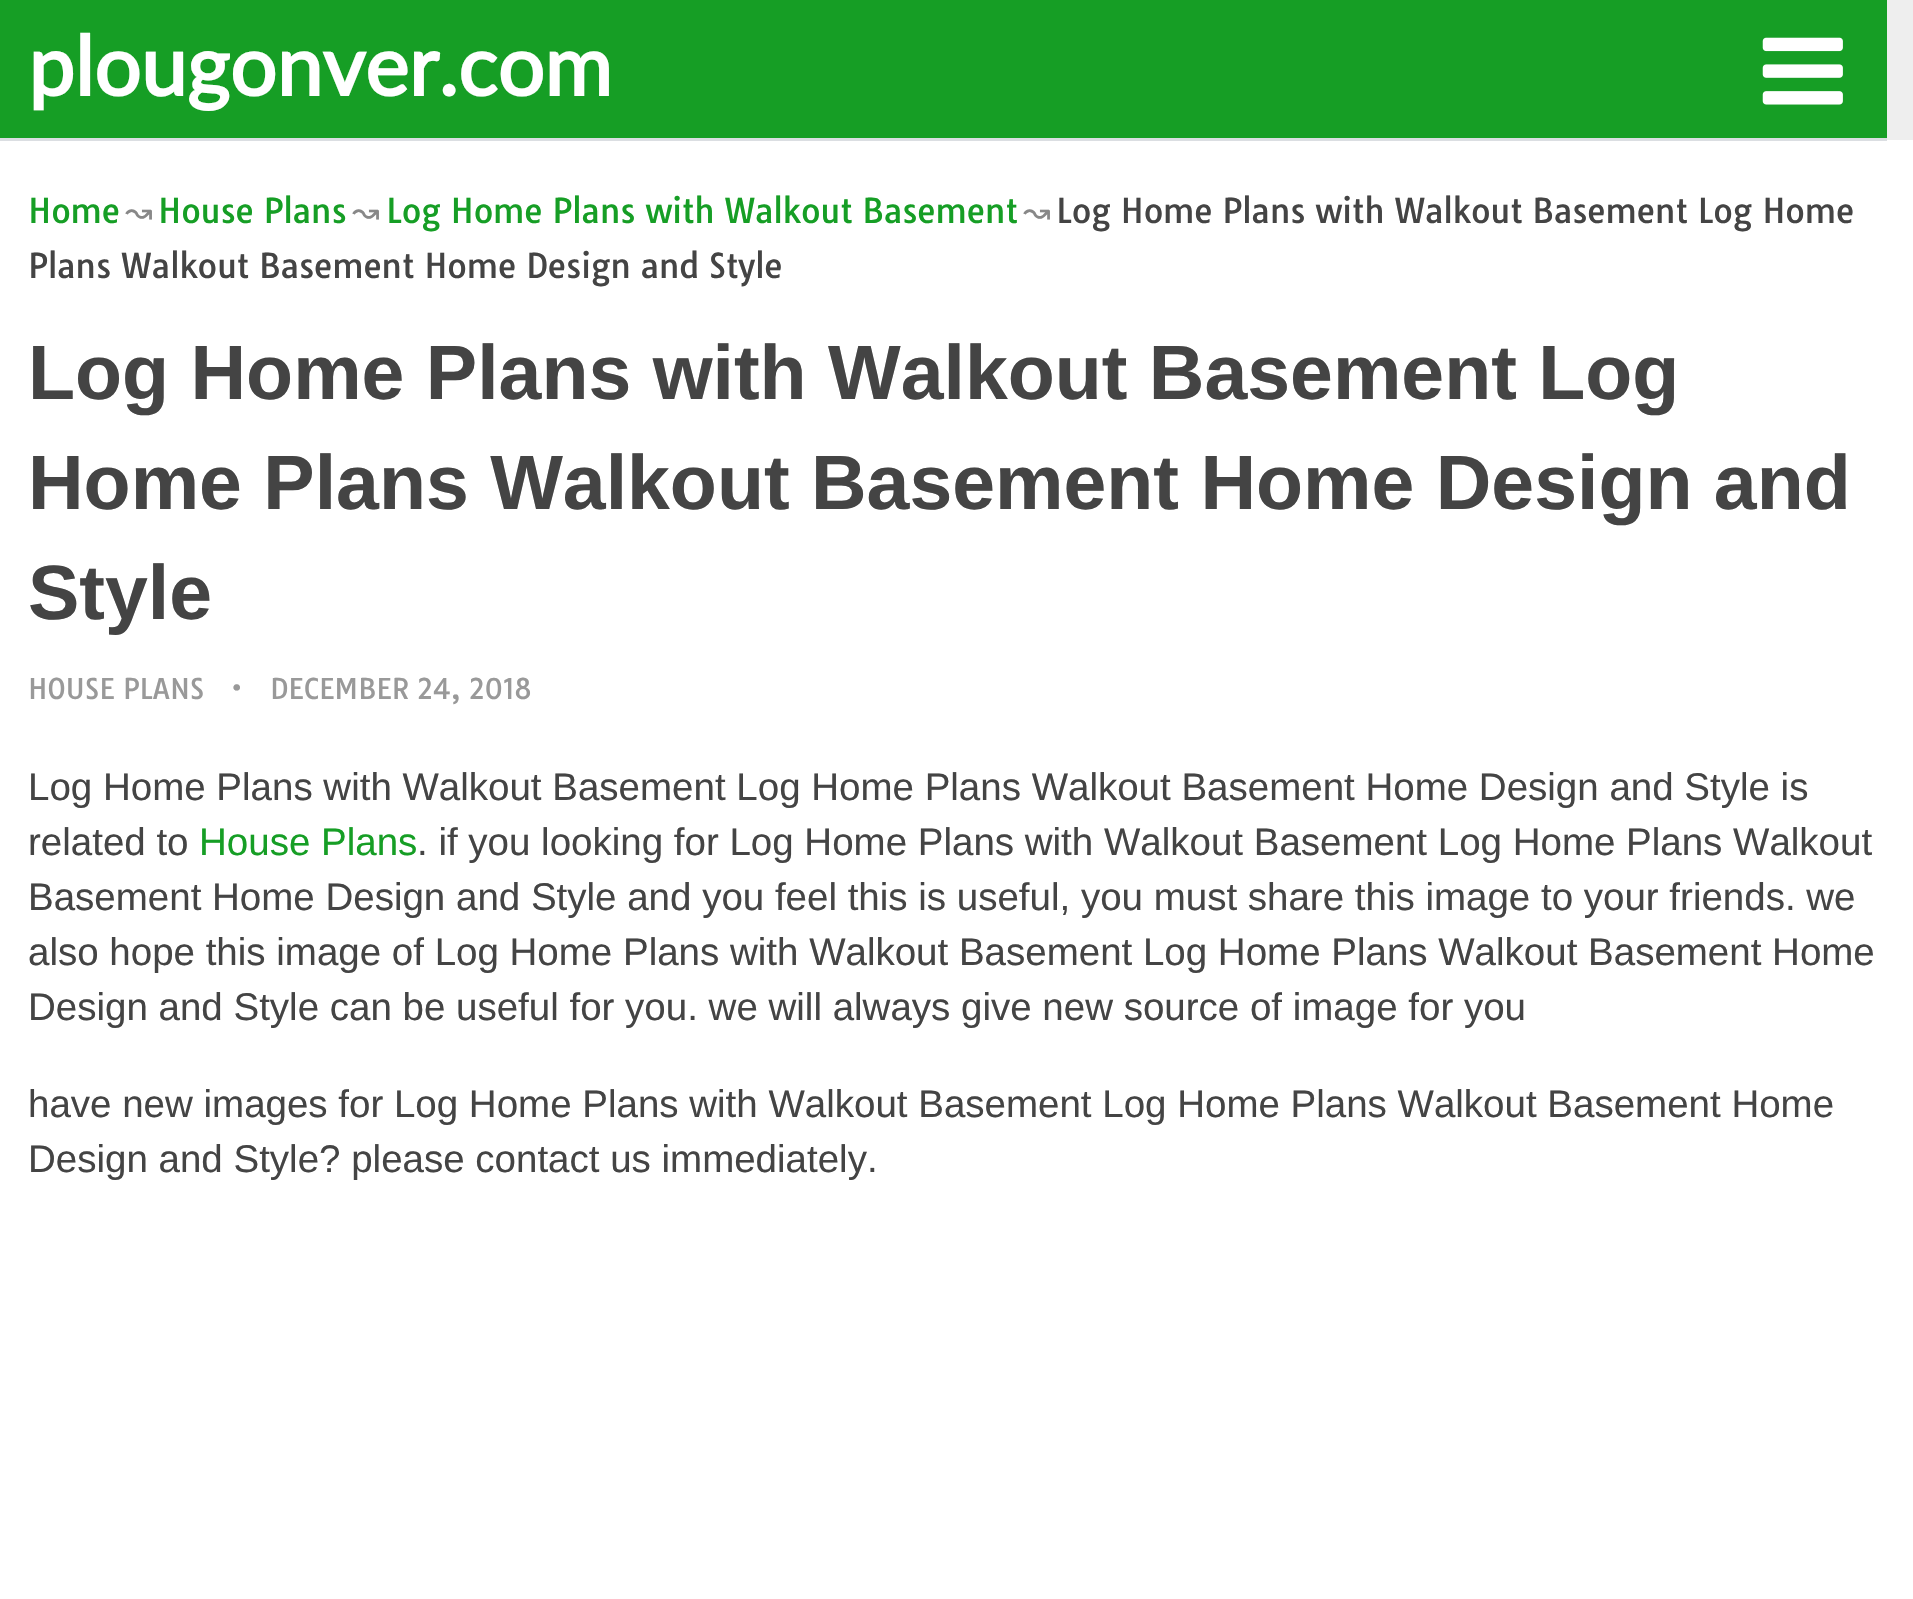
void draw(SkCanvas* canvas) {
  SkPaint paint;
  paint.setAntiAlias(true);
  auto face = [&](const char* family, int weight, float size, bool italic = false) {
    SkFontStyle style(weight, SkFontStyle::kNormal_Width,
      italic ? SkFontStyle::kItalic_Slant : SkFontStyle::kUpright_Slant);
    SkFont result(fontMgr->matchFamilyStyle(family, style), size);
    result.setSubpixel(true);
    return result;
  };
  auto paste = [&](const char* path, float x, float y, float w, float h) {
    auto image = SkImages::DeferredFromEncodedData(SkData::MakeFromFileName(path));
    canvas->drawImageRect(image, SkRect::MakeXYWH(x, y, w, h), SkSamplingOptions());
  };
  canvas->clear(0xffeeeeee);
  {
    const struct { float x, y, w, h; SkColor color; } items[] = {
      {0, 0, 1887, 138, 0xff169e25},
      {0, 140, 1913, 1459, 0xffffffff},
      {0, 138, 1887, 3, 0xffdbdee2},
    };
    for (auto [x, y, w, h, color] : items) {
      paint.setColor(color);
      canvas->drawRect(SkRect::MakeXYWH(x, y, w, h), paint);
    }
  }
  paste("img/1.png", 1762, 37, 81, 68);
  auto f0 = face("Lato", 700, 82.5f);
  paint.setColor(0xffffffff);
  canvas->drawString("plougonver.com", 28, 96, f0, paint);
  auto f1 = face("Tauri", 400, 33);
  paint.setColor(0xff169e25);
  canvas->drawString("Home", 28, 223, f1, paint);
  auto f2 = face("DejaVu Sans", 400, 33);
  paint.setColor(0xff888888);
  canvas->drawString("↝", 125, 223, f2, paint);
  paint.setColor(0xff169e25);
  canvas->drawString("House Plans", 158, 223, f1, paint);
  paint.setColor(0xff888888);
  canvas->drawString("↝", 352, 223, f2, paint);
  paint.setColor(0xff169e25);
  canvas->drawString("Log Home Plans with Walkout Basement", 386, 223, f1, paint);
  paint.setColor(0xff888888);
  canvas->drawString("↝", 1023, 223, f2, paint);
  paint.setColor(0xff444444);
  canvas->drawString("Log Home Plans with Walkout Basement Log Home", 1056, 223, f1, paint);
  canvas->drawString("Plans Walkout Basement Home Design and Style", 28, 278, f1, paint);
  auto f3 = face("Liberation Sans", 700, 77);
  {
    const struct { const char* s; float x, y; } items[] = {
      {"Log Home Plans with Walkout Basement Log", 28, 399},
      {"Home Plans Walkout Basement Home Design and", 28, 509},
      {"Style", 28, 619},
    };
    for (auto [s, x, y] : items) {
      canvas->drawString(s, x, y, f3, paint);
    }
  }
  auto f4 = face("Tauri", 400, 27.5f);
  paint.setColor(0xff999999);
  {
    const struct { const char* s; float x, y; } items[] = {
      {"HOUSE PLANS", 28, 699},
      {"•", 231, 699},
      {"DECEMBER 24, 2018", 270, 699},
    };
    for (auto [s, x, y] : items) {
      canvas->drawString(s, x, y, f4, paint);
    }
  }
  auto f5 = face("Liberation Sans", 400, 38.5f);
  paint.setColor(0xff444444);
  canvas->drawString("Log Home Plans with Walkout Basement Log Home Plans Walkout Basement Home Design and Style is", 28, 800, f5, paint);
  canvas->drawString("related to", 28, 855, f5, paint);
  paint.setColor(0xff169e25);
  canvas->drawString("House Plans", 199, 855, f5, paint);
  paint.setColor(0xff444444);
  {
    const struct { const char* s; float x, y; } items[] = {
      {". if you looking for Log Home Plans with Walkout Basement Log Home Plans Walkout", 417, 855},
      {"Basement Home Design and Style and you feel this is useful, you must share this image to your friends. we", 28, 910},
      {"also hope this image of Log Home Plans with Walkout Basement Log Home Plans Walkout Basement Home", 28, 965},
      {"Design and Style can be useful for you. we will always give new source of image for you", 28, 1020},
      {"have new images for Log Home Plans with Walkout Basement Log Home Plans Walkout Basement Home", 28, 1117},
      {"Design and Style? please contact us immediately.", 28, 1172},
    };
    for (auto [s, x, y] : items) {
      canvas->drawString(s, x, y, f5, paint);
    }
  }
}
